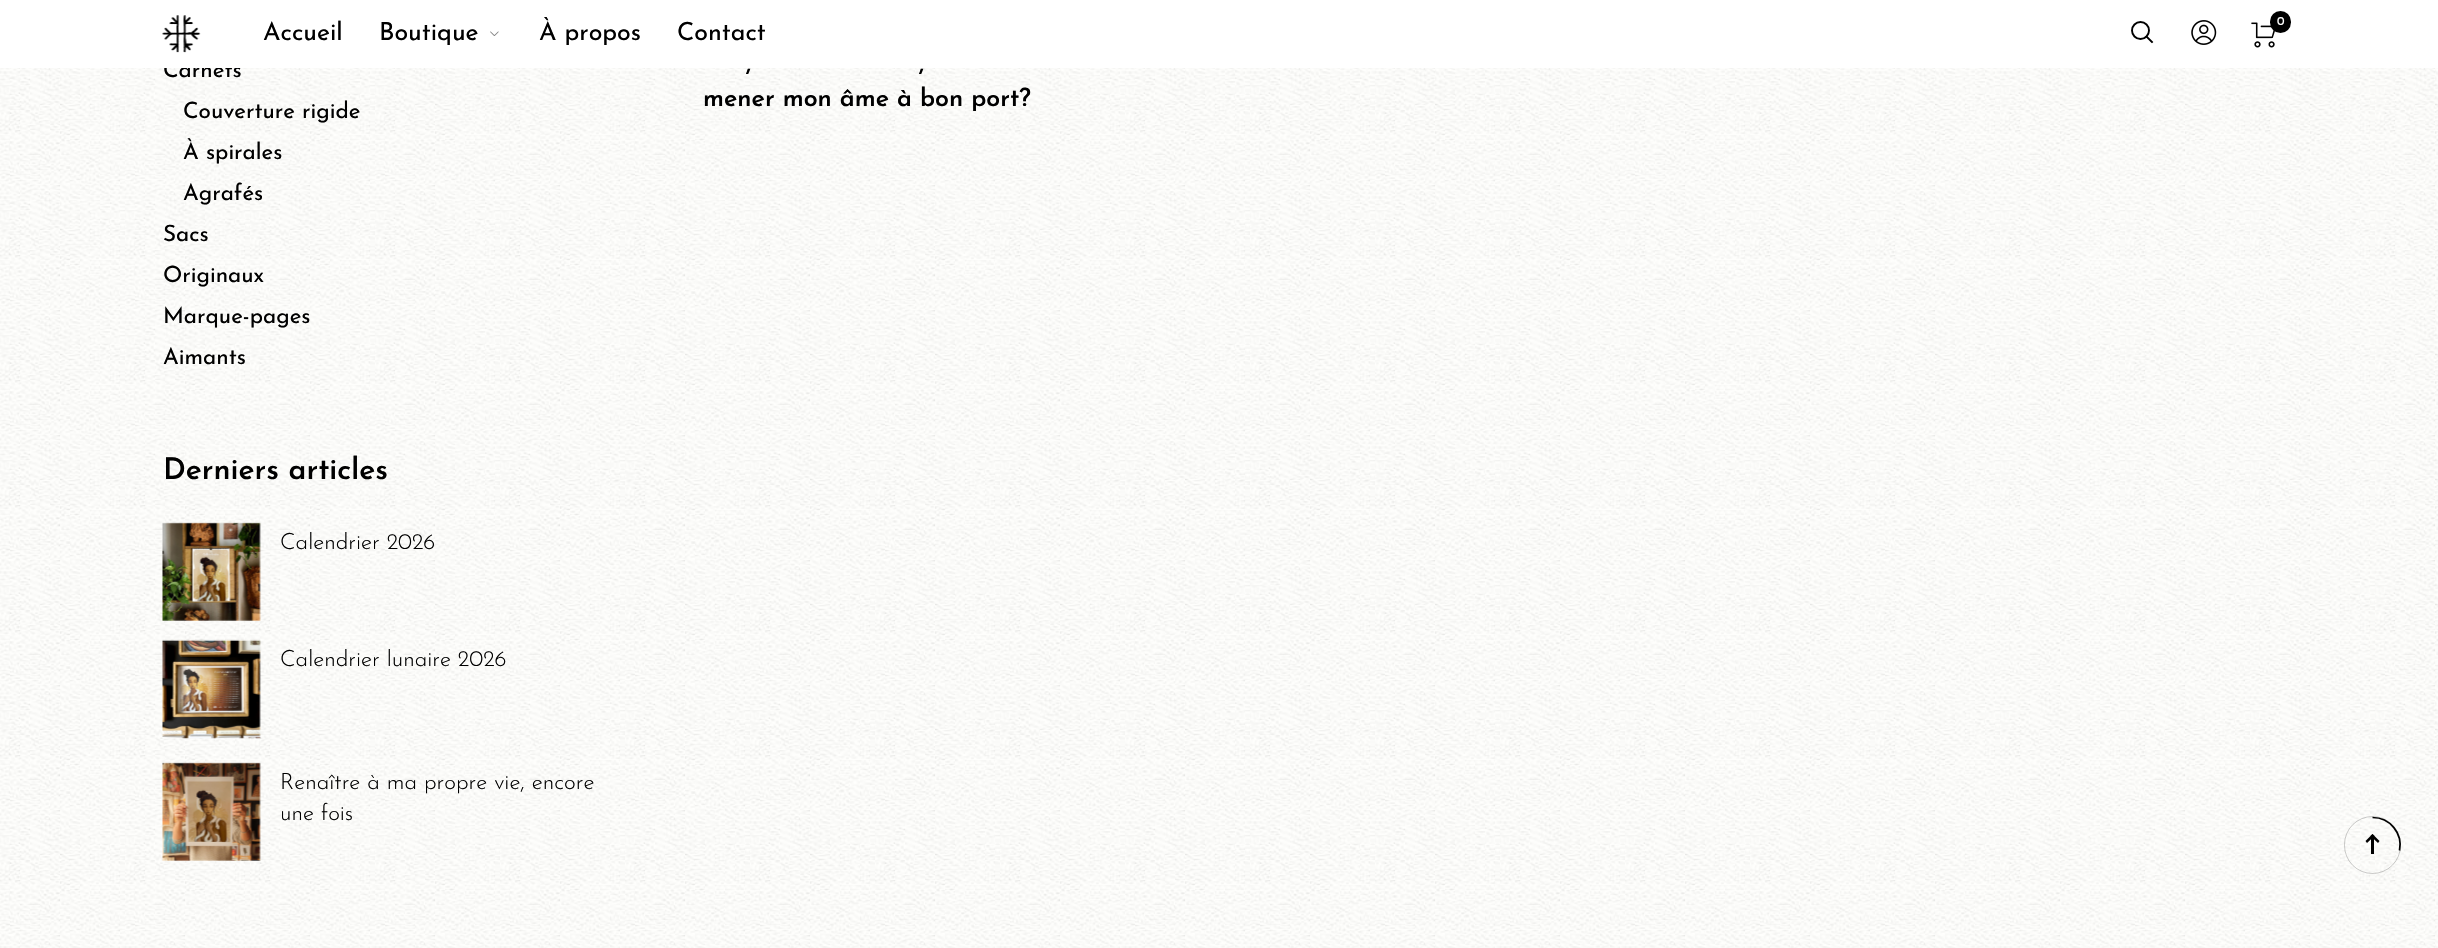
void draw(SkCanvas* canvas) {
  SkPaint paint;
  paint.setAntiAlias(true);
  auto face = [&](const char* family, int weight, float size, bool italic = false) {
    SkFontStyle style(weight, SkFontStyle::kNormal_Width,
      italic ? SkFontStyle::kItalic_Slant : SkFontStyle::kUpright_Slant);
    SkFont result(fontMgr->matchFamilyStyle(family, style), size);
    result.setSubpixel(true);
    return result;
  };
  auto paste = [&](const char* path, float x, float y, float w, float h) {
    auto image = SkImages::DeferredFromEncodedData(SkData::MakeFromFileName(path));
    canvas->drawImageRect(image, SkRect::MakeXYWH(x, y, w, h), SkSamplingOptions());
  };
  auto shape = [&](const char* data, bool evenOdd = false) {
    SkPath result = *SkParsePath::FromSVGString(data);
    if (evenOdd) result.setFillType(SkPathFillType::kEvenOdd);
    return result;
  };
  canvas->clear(0xffffffff);
  paste("img/1.png", 162, 15, 39, 38);
  paste("img/2.png", 490, 31, 9, 5);
  paint.setStroke(true);
  paint.setStrokeWidth(1.9f);
  paint.setStrokeCap(SkPaint::kSquare_Cap);
  paint.setColor(0xff000000);
  canvas->drawPath(shape("M2152 42L2146.5 36.5"), paint);
  paint.setStrokeCap(SkPaint::kButt_Cap);
  canvas->drawCircle(2140.5f, 30.5f, 8.5f, paint);
  paste("img/3.png", 2191, 20, 26, 25);
  paste("img/4.png", 2251, 22, 24, 26);
  paint.setStroke(false);
  canvas->drawRoundRect(SkRect::MakeXYWH(2270, 11, 21, 22), 10.5f, 10.5f, paint);
  paste("img/5.png", 0, 68, 2438, 880);
  paste("img/6.png", 162, 522, 99, 99);
  paste("img/7.png", 162, 639, 99, 100);
  paste("img/8.png", 162, 762, 99, 99);
  paint.setStroke(true);
  paint.setStrokeWidth(1);
  paint.setColor(0x33000000);
  canvas->drawRoundRect(SkRect::MakeXYWH(2344.5f, 816.5f, 56, 57), 28, 28, paint);
  paint.setStrokeWidth(1.7f);
  paint.setColor(0xff000000);
  canvas->drawPath(shape("M2372.5 817.5C2390 817.5 2403 833.5 2399.5 850.5"), paint);
  paint.setStroke(false);
  canvas->drawPath(shape("M2374.5 836L2367 843L2365.5 841L2372.5 834Z"), paint);
  canvas->drawPath(shape("M2379.5 841L2378 843L2370.5 836L2372.5 834Z"), paint);
  canvas->drawRect(SkRect::MakeXYWH(2371, 836, 3, 18), paint);
  auto f0 = face("Josefin Sans", 400, 25);
  {
    const struct { const char* s; float x, y; } items[] = {
      {"Accueil", 263, 40},
      {"Boutique", 379, 40},
      {"À propos", 539, 40},
      {"Contact", 677, 40},
    };
    for (auto [s, x, y] : items) {
      canvas->drawString(s, x, y, f0, paint);
    }
  }
  auto f1 = face("Josefin Sans", 400, 12);
  paint.setColor(0xffffffff);
  canvas->drawString("0", 2277, 25, f1, paint);
  auto f2 = face("Josefin Sans", 400, 22.5f);
  paint.setColor(0xff000000);
  canvas->drawString("Carnets", 163, 77, f2, paint);
  paint.setColor(0xffffffff);
  canvas->drawRect(SkRect::MakeXYWH(163, 60, 77, 8), paint);
  paint.setColor(0xff000000);
  {
    const struct { const char* s; float x, y; } items[] = {
      {"Couverture rigide", 183, 118},
      {"À spirales", 183, 159},
      {"Agrafés", 183, 200},
      {"Sacs", 163, 241},
      {"Originaux", 163, 282},
      {"Marque-pages", 163, 323},
      {"Aimants", 163, 364},
    };
    for (auto [s, x, y] : items) {
      canvas->drawString(s, x, y, f2, paint);
    }
  }
  auto f3 = face("Josefin Sans", 600, 30);
  canvas->drawString("Derniers articles", 163, 479, f3, paint);
  auto f4 = face("Josefin Sans", 300, 22.5f);
  {
    const struct { const char* s; float x, y; } items[] = {
      {"Calendrier 2026", 280, 549},
      {"Calendrier lunaire 2026", 280, 666},
      {"Renaître à ma propre vie, encore", 280, 789},
      {"une fois", 280, 820},
    };
    for (auto [s, x, y] : items) {
      canvas->drawString(s, x, y, f4, paint);
    }
  }
  auto f5 = face("Josefin Sans", 600, 25);
  {
    const struct { const char* s; float x, y; } items[] = {
      {",", 746, 71},
      {",", 919, 71},
      {"mener mon âme à bon port?", 703, 106},
    };
    for (auto [s, x, y] : items) {
      canvas->drawString(s, x, y, f5, paint);
    }
  }
}
